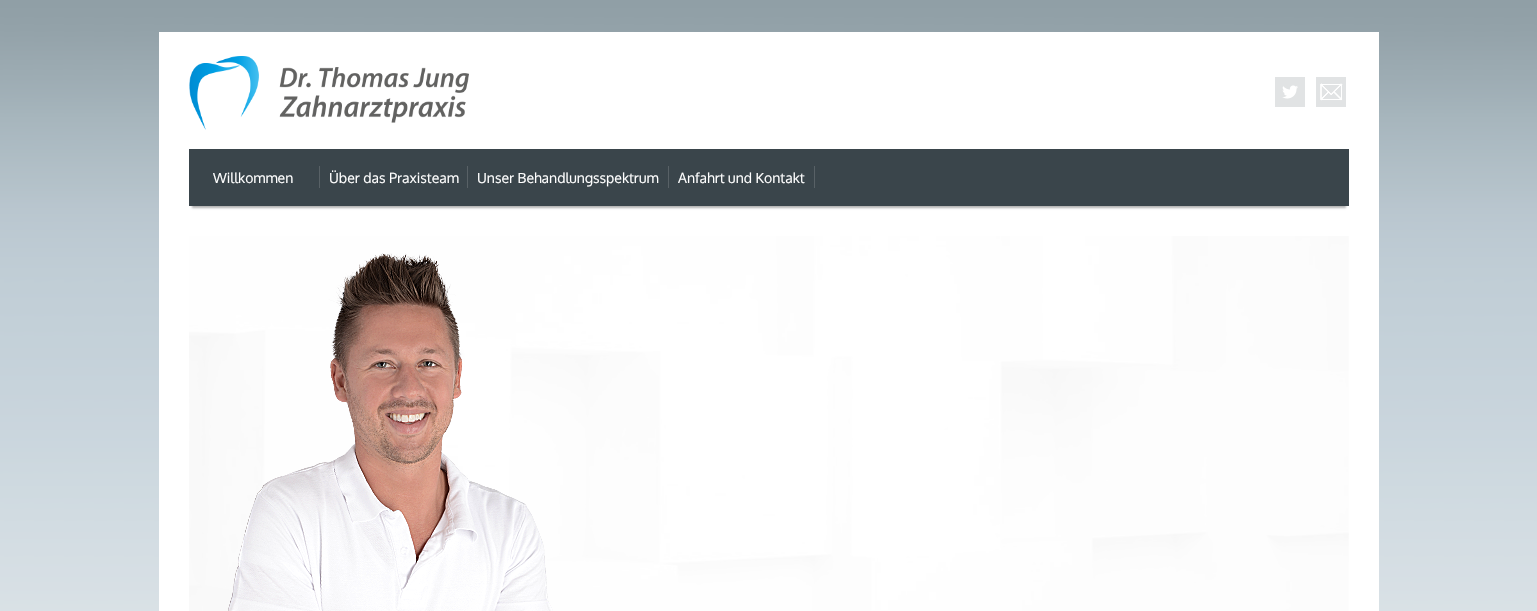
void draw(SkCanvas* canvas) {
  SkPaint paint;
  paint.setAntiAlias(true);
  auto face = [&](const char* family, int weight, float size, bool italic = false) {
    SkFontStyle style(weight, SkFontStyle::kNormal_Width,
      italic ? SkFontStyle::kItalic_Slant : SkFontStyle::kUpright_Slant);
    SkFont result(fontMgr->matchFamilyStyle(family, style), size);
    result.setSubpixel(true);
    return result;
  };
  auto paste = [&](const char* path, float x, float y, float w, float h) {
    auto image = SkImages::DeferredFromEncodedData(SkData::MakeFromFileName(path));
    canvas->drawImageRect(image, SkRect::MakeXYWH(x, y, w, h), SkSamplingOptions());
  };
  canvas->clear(0xffffffff);
  paste("img/1.png", 0, 0, 1537, 611);
  paint.setColor(0xffffffff);
  canvas->drawRect(SkRect::MakeXYWH(159, 32, 1220, 579), paint);
  paste("img/2.png", 189, 56, 280, 74);
  paint.setColor(0xffe1e3e4);
  canvas->drawRect(SkRect::MakeXYWH(1275, 77, 30, 30), paint);
  paste("img/3.png", 1282, 85, 16, 14);
  canvas->drawRect(SkRect::MakeXYWH(1316, 77, 30, 30), paint);
  paste("img/4.png", 1320, 83, 23, 18);
  paint.setColor(0x4d000000);
  paint.setMaskFilter(SkMaskFilter::MakeBlur(kNormal_SkBlurStyle, 1));
  canvas->drawRect(SkRect::MakeXYWH(192, 157, 1154, 51), paint);
  paint.setMaskFilter(nullptr);
  {
    const struct { float x, y, w, h; SkColor color; } items[] = {
      {189, 149, 1160, 57, 0xff3a454b},
      {319, 166, 1, 22, 0xff586166},
      {467, 166, 1, 22, 0xff586166},
      {668, 166, 1, 22, 0xff586166},
      {814, 166, 1, 22, 0xff586166},
    };
    for (auto [x, y, w, h, color] : items) {
      paint.setColor(color);
      canvas->drawRect(SkRect::MakeXYWH(x, y, w, h), paint);
    }
  }
  paste("img/5.png", 189, 236, 1160, 375);
  paste("img/6.png", 228, 253, 325, 358);
  auto f0 = face("Oxygen", 400, 14);
  paint.setColor(0xffffffff);
  {
    const struct { const char* s; float x, y; } items[] = {
      {"Willkommen", 213, 183},
      {"Über das Praxisteam", 329, 183},
      {"Unser Behandlungsspektrum", 477, 183},
      {"Anfahrt und Kontakt", 678, 183},
    };
    for (auto [s, x, y] : items) {
      canvas->drawString(s, x, y, f0, paint);
    }
  }
}
